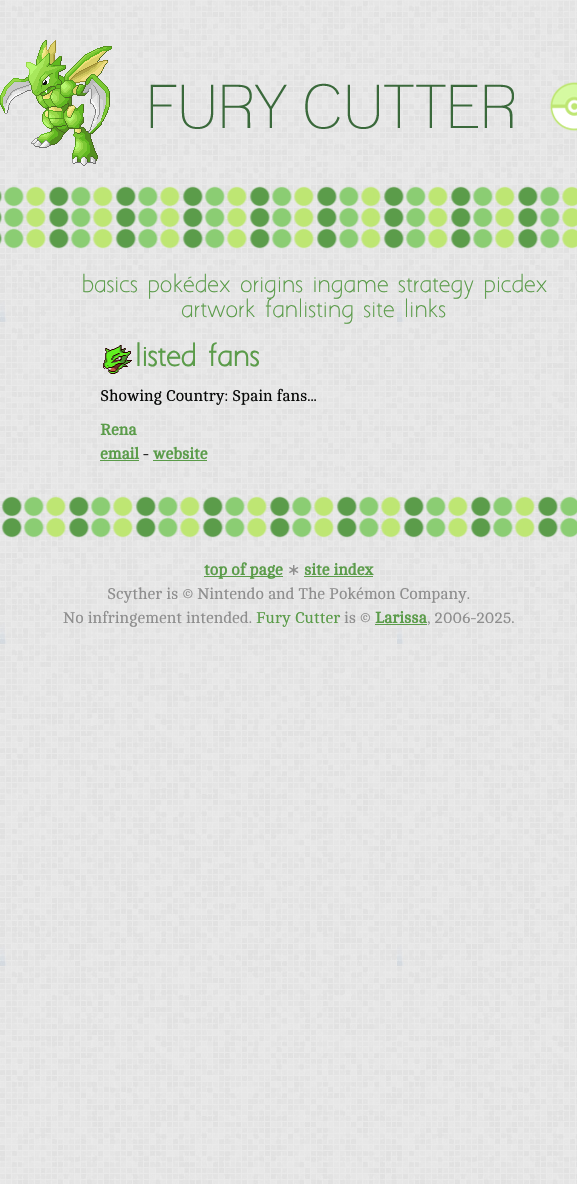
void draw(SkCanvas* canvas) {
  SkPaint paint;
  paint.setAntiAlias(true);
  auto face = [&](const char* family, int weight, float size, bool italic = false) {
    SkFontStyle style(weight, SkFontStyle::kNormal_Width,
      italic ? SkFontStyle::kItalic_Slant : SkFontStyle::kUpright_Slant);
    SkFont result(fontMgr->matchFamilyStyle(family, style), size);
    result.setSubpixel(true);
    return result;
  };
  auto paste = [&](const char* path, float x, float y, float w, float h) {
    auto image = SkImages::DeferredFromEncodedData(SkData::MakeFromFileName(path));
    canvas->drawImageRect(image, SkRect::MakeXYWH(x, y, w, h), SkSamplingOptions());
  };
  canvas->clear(0xffffffff);
  paste("img/1.png", 0, 0, 577, 1184);
  paste("img/2.png", 0, 40, 577, 126);
  paste("img/3.png", 0, 186, 577, 63);
  paste("img/4.png", 103, 345, 29, 29);
  paint.setColor(0xff5b9c4a);
  canvas->drawRect(SkRect::MakeXYWH(100, 460, 39, 1), paint);
  canvas->drawRect(SkRect::MakeXYWH(153, 460, 54, 1), paint);
  paste("img/5.png", 1, 496, 576, 42);
  {
    const struct { float x, y, w, h; SkColor color; } items[] = {
      {204, 576, 79, 1, 0xff5b9c4a},
      {304, 576, 69, 1, 0xff5b9c4a},
      {375, 624, 52, 1, 0xff5b9c4a},
    };
    for (auto [x, y, w, h, color] : items) {
      paint.setColor(color);
      canvas->drawRect(SkRect::MakeXYWH(x, y, w, h), paint);
    }
  }
  auto f0 = face("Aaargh", 400, 20);
  canvas->drawString("basics pokédex origins ingame strategy picdex", 82, 292, f0, paint);
  canvas->drawString("artwork fanlisting site links", 181, 317, f0, paint);
  auto f1 = face("Aaargh", 700, 25);
  canvas->drawString("listed fans", 135, 366, f1, paint);
  auto f2 = face("Cambo", 400, 16);
  paint.setColor(0xff080908);
  canvas->drawString("Showing Country: Spain fans...", 100, 401, f2, paint);
  auto f3 = face("Cambo", 700, 16);
  paint.setColor(0xff5b9c4a);
  canvas->drawString("Rena", 100, 435, f3, paint);
  canvas->drawString("email", 100, 459, f3, paint);
  paint.setColor(0xff080908);
  canvas->drawString("-", 143, 459, f2, paint);
  paint.setColor(0xff5b9c4a);
  canvas->drawString("website", 153, 459, f3, paint);
  canvas->drawString("top of page", 204, 575, f3, paint);
  auto f4 = face("DejaVu Sans", 400, 16);
  paint.setColor(0xff8e8e8e);
  canvas->drawString("∗", 287, 575, f4, paint);
  paint.setColor(0xff5b9c4a);
  canvas->drawString("site index", 304, 575, f3, paint);
  paint.setColor(0xff8e8e8e);
  canvas->drawString("Scyther is © Nintendo and The Pokémon Company.", 107, 599, f2, paint);
  canvas->drawString("No infringement intended.", 63, 623, f2, paint);
  paint.setColor(0xff5b9c4a);
  canvas->drawString("Fury Cutter", 256, 623, f2, paint);
  paint.setColor(0xff8e8e8e);
  canvas->drawString("is ©", 344, 623, f2, paint);
  paint.setColor(0xff5b9c4a);
  canvas->drawString("Larissa", 375, 623, f3, paint);
  paint.setColor(0xff8e8e8e);
  canvas->drawString(", 2006-2025.", 427, 623, f2, paint);
}
